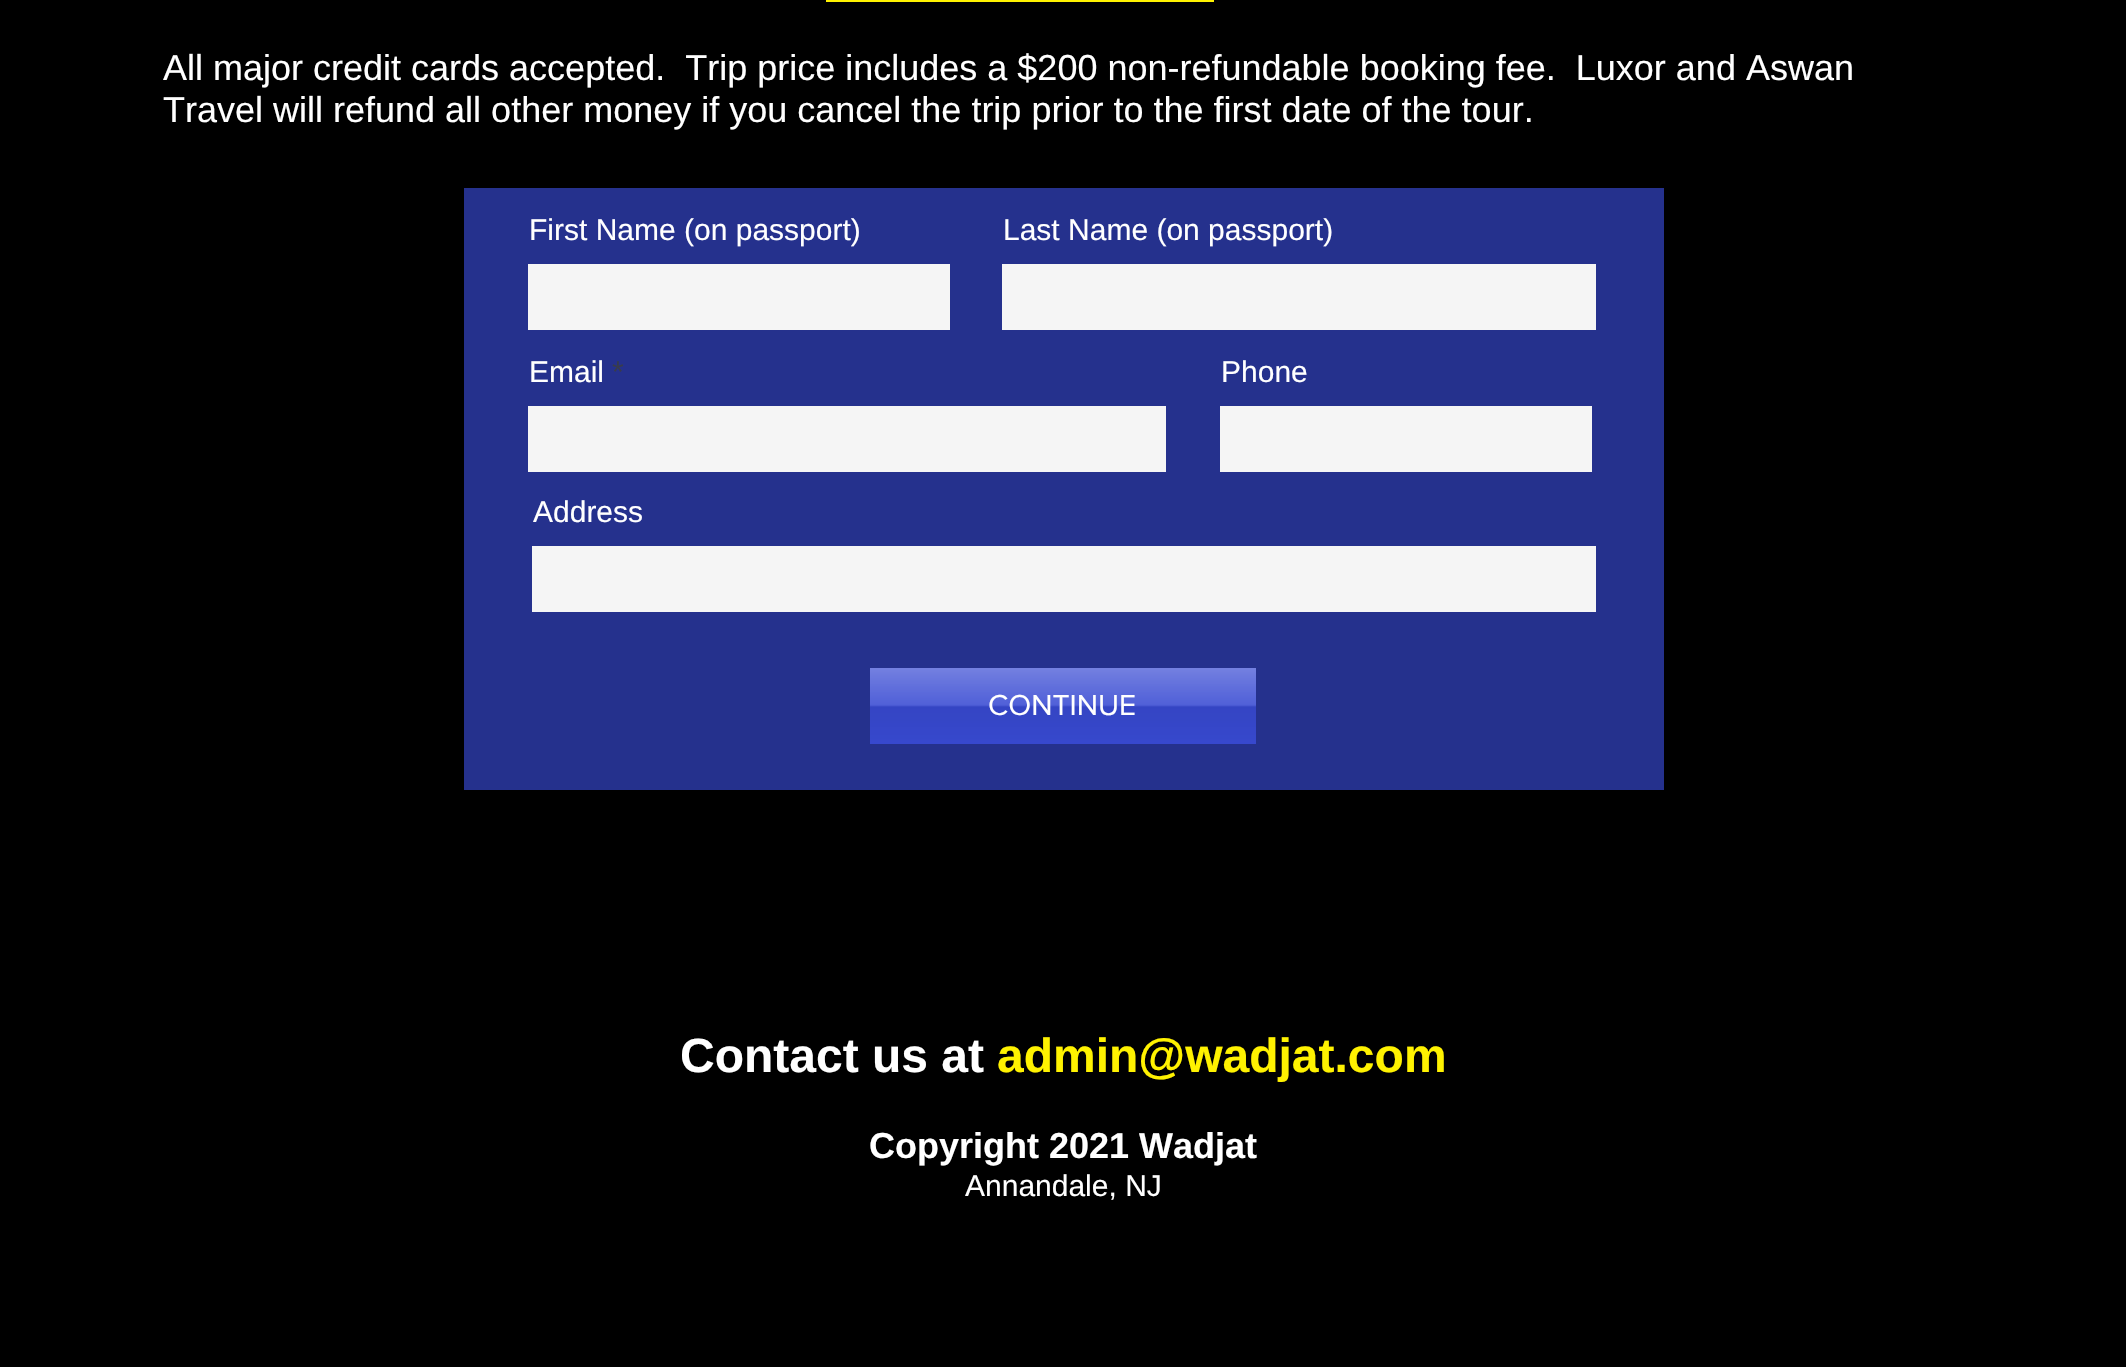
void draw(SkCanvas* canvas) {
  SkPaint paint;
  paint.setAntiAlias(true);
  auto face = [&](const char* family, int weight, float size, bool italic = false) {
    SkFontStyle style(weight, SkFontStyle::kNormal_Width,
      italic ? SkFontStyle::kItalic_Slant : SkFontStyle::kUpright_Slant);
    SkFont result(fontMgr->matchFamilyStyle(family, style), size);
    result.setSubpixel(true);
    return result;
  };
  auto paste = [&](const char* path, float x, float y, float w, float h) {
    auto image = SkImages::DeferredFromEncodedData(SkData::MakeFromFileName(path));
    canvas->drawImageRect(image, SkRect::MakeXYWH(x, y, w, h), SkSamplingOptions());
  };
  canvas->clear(0xff000000);
  {
    const struct { float x, y, w, h; SkColor color; } items[] = {
      {826, 0, 388, 2, 0xfffff200},
      {464, 188, 1200, 602, 0xff25318d},
      {528, 264, 422, 66, 0xfff5f5f5},
      {1002, 264, 594, 66, 0xfff5f5f5},
      {528, 406, 638, 66, 0xfff5f5f5},
      {1220, 406, 372, 66, 0xfff5f5f5},
      {532, 546, 1064, 66, 0xfff5f5f5},
      {870, 668, 386, 76, 0xff384ad3},
    };
    for (auto [x, y, w, h, color] : items) {
      paint.setColor(color);
      canvas->drawRect(SkRect::MakeXYWH(x, y, w, h), paint);
    }
  }
  paste("img/1.png", 870, 668, 386, 76);
  auto f0 = face("Liberation Sans", 400, 36);
  paint.setColor(0xffffffff);
  canvas->drawString("All major credit cards accepted.  Trip price includes a $200 non-refundable booking fee.  Luxor and Aswan", 163, 80, f0, paint);
  canvas->drawString("Travel will refund all other money if you cancel the trip prior to the first date of the tour.", 163, 122, f0, paint);
  auto f1 = face("Liberation Sans", 400, 30);
  {
    const struct { const char* s; float x, y; } items[] = {
      {"First Name (on passport)", 529, 240},
      {"Last Name (on passport)", 1003, 240},
      {"Email", 529, 382},
    };
    for (auto [s, x, y] : items) {
      canvas->drawString(s, x, y, f1, paint);
    }
  }
  paint.setColor(0xff373b4d);
  canvas->drawString("*", 612, 382, f1, paint);
  paint.setColor(0xffffffff);
  canvas->drawString("Phone", 1221, 382, f1, paint);
  canvas->drawString("Address", 533, 522, f1, paint);
  auto f2 = face("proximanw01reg", 400, 30);
  canvas->drawString("CONTINUE", 988, 715, f2, paint);
  auto f3 = face("Liberation Sans", 700, 48);
  canvas->drawString("Contact us at", 680, 1072, f3, paint);
  paint.setColor(0xfffff200);
  canvas->drawString("admin@wadjat.com", 997, 1072, f3, paint);
  auto f4 = face("Liberation Sans", 700, 36);
  paint.setColor(0xffffffff);
  canvas->drawString("Copyright 2021 Wadjat", 869, 1158, f4, paint);
  canvas->drawString("Annandale, NJ", 965, 1196, f1, paint);
}
